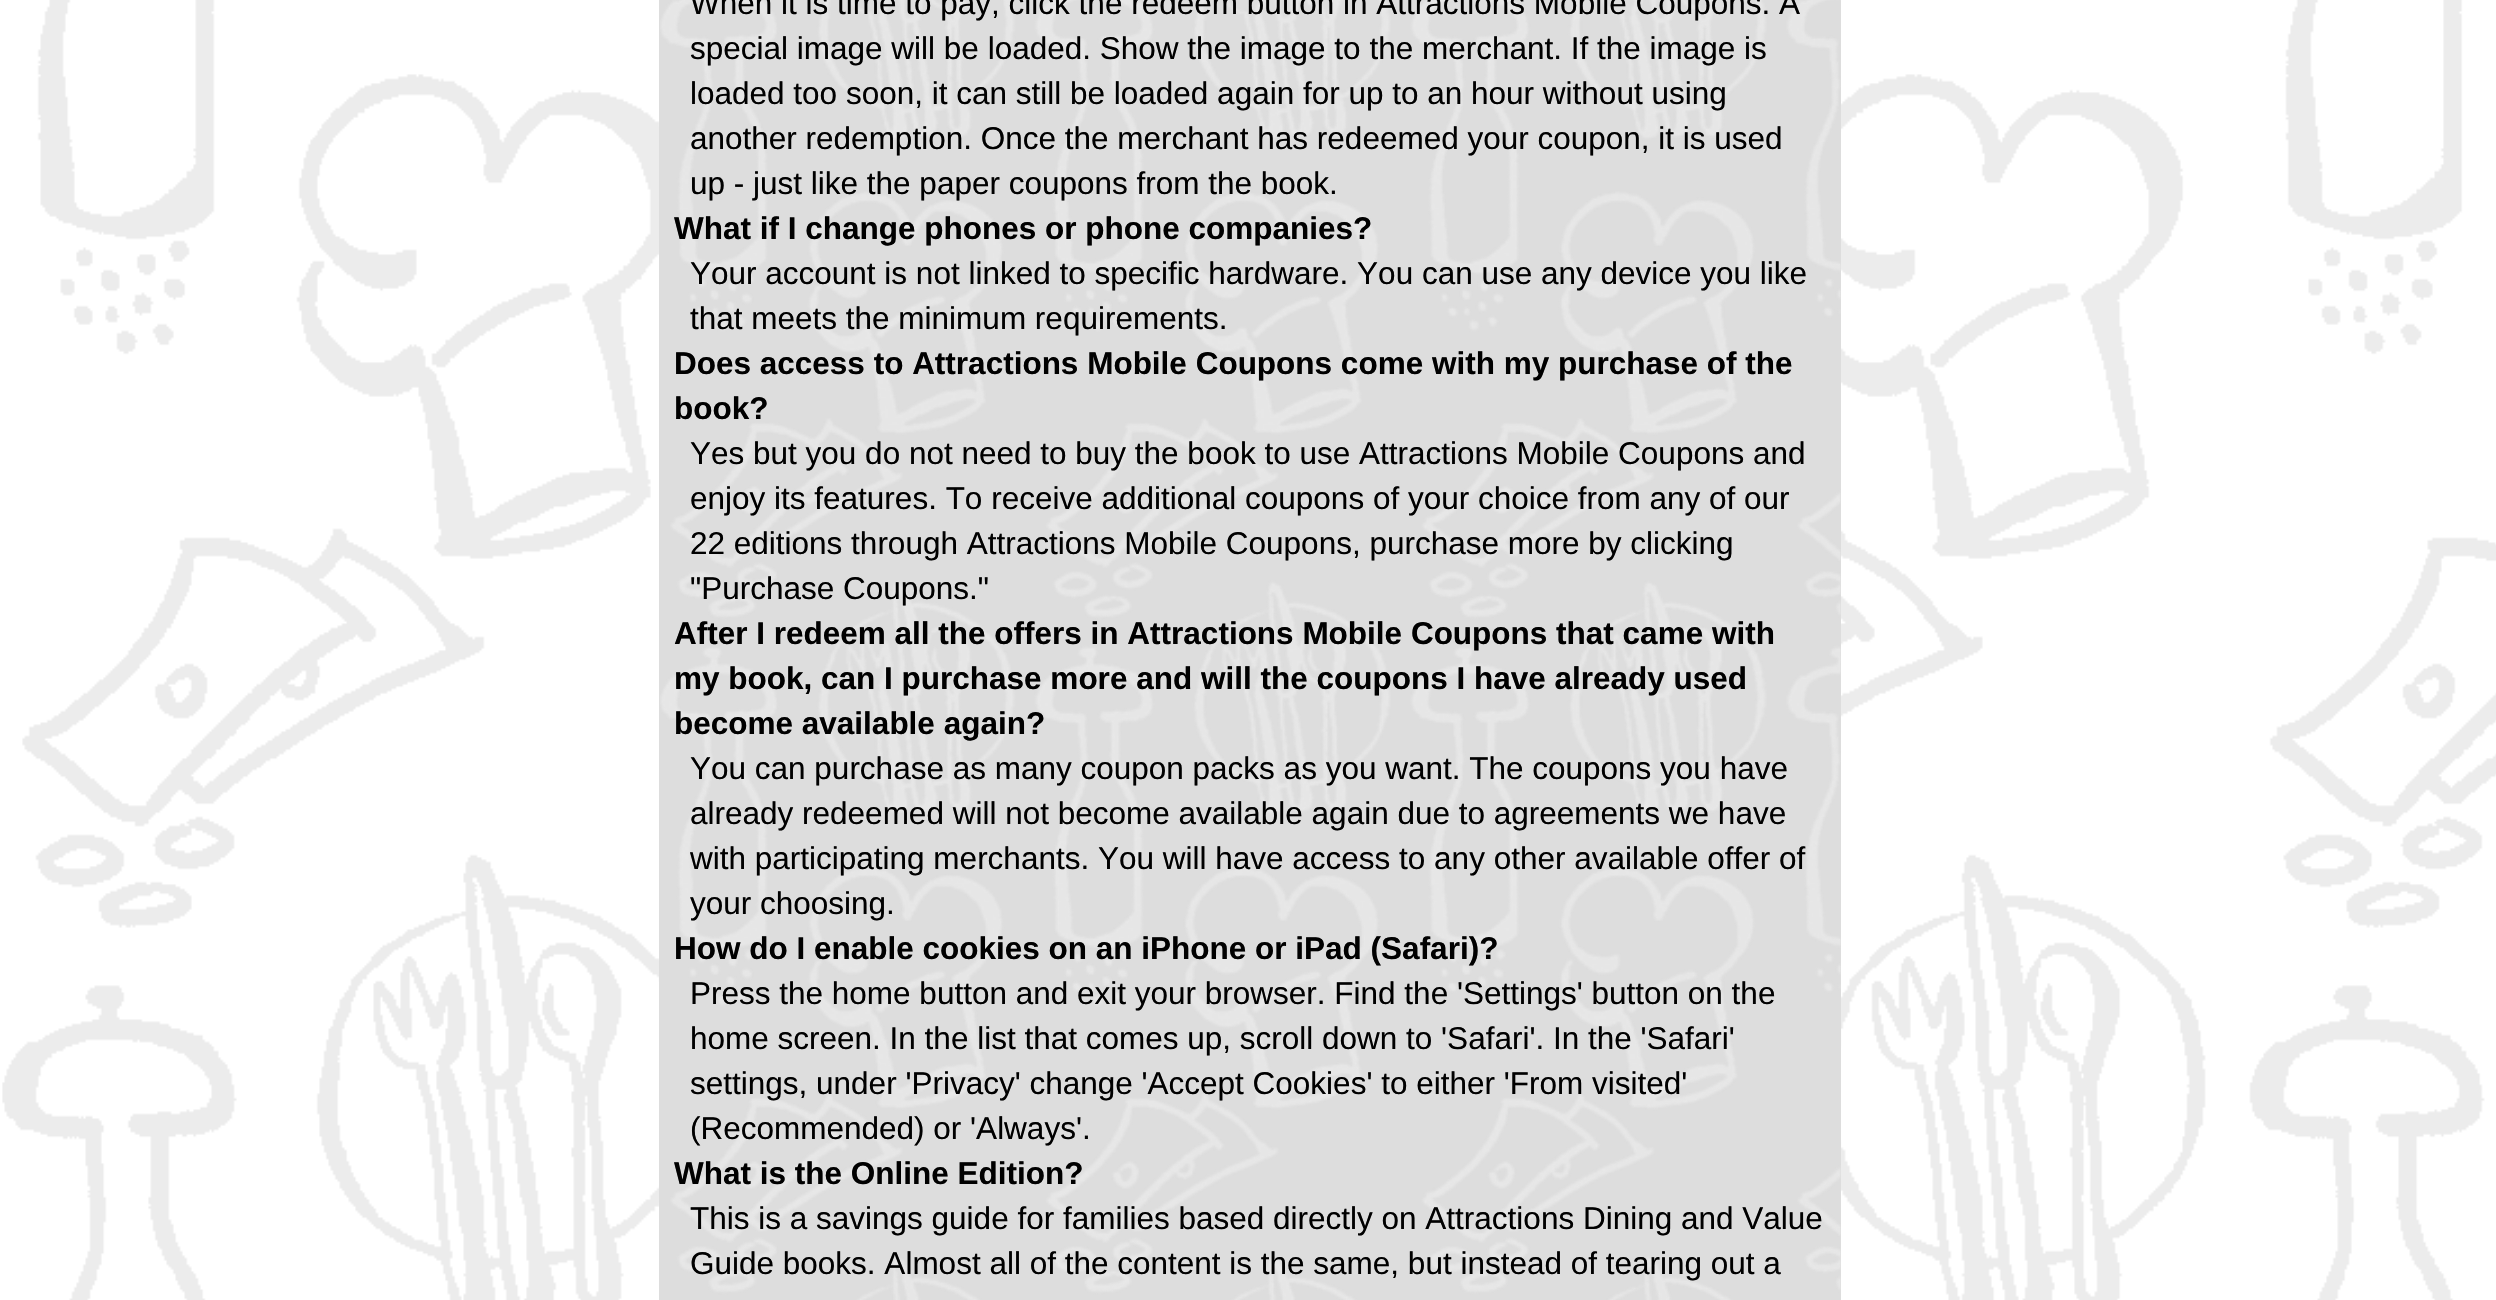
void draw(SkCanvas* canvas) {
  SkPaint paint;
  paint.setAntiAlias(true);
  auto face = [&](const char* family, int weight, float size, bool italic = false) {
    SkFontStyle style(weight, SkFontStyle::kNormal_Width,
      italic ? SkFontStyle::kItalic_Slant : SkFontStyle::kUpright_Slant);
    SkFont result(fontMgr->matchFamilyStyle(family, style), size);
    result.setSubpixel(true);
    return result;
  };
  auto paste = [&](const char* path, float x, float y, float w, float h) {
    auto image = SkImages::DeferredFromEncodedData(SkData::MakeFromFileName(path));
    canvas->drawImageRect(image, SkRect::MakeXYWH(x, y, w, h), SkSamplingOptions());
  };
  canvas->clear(0xffffffff);
  paste("img/1.png", 2, 0, 2494, 1300);
  paint.setColor(0xffdddddd);
  canvas->drawRect(SkRect::MakeXYWH(659, 0, 1182, 1300), paint);
  paste("img/2.png", 660, 0, 1181, 1300);
  auto f0 = face("Liberation Sans", 400, 31.5f);
  paint.setColor(0xff000000);
  {
    const struct { const char* s; float x, y; } items[] = {
      {"When it is time to pay, click the redeem button in Attractions Mobile Coupons. A", 690, 14},
      {"special image will be loaded. Show the image to the merchant. If the image is", 690, 59},
      {"loaded too soon, it can still be loaded again for up to an hour without using", 690, 104},
      {"another redemption. Once the merchant has redeemed your coupon, it is used", 690, 149},
      {"up - just like the paper coupons from the book.", 690, 194},
    };
    for (auto [s, x, y] : items) {
      canvas->drawString(s, x, y, f0, paint);
    }
  }
  auto f1 = face("Liberation Sans", 700, 31.5f);
  canvas->drawString("What if I change phones or phone companies?", 674, 239, f1, paint);
  canvas->drawString("Your account is not linked to specific hardware. You can use any device you like", 690, 284, f0, paint);
  canvas->drawString("that meets the minimum requirements.", 690, 329, f0, paint);
  canvas->drawString("Does access to Attractions Mobile Coupons come with my purchase of the", 674, 374, f1, paint);
  canvas->drawString("book?", 674, 419, f1, paint);
  {
    const struct { const char* s; float x, y; } items[] = {
      {"Yes but you do not need to buy the book to use Attractions Mobile Coupons and", 690, 464},
      {"enjoy its features. To receive additional coupons of your choice from any of our", 690, 509},
      {"22 editions through Attractions Mobile Coupons, purchase more by clicking", 690, 554},
      {"\"Purchase Coupons.\"", 690, 599},
    };
    for (auto [s, x, y] : items) {
      canvas->drawString(s, x, y, f0, paint);
    }
  }
  {
    const struct { const char* s; float x, y; } items[] = {
      {"After I redeem all the offers in Attractions Mobile Coupons that came with", 674, 644},
      {"my book, can I purchase more and will the coupons I have already used", 674, 689},
      {"become available again?", 674, 734},
    };
    for (auto [s, x, y] : items) {
      canvas->drawString(s, x, y, f1, paint);
    }
  }
  {
    const struct { const char* s; float x, y; } items[] = {
      {"You can purchase as many coupon packs as you want. The coupons you have", 690, 779},
      {"already redeemed will not become available again due to agreements we have", 690, 824},
      {"with participating merchants. You will have access to any other available offer of", 690, 869},
      {"your choosing.", 690, 914},
    };
    for (auto [s, x, y] : items) {
      canvas->drawString(s, x, y, f0, paint);
    }
  }
  canvas->drawString("How do I enable cookies on an iPhone or iPad (Safari)?", 674, 959, f1, paint);
  {
    const struct { const char* s; float x, y; } items[] = {
      {"Press the home button and exit your browser. Find the 'Settings' button on the", 690, 1004},
      {"home screen. In the list that comes up, scroll down to 'Safari'. In the 'Safari'", 690, 1049},
      {"settings, under 'Privacy' change 'Accept Cookies' to either 'From visited'", 690, 1094},
      {"(Recommended) or 'Always'.", 690, 1139},
    };
    for (auto [s, x, y] : items) {
      canvas->drawString(s, x, y, f0, paint);
    }
  }
  canvas->drawString("What is the Online Edition?", 674, 1184, f1, paint);
  canvas->drawString("This is a savings guide for families based directly on Attractions Dining and Value", 690, 1229, f0, paint);
  canvas->drawString("Guide books. Almost all of the content is the same, but instead of tearing out a", 690, 1274, f0, paint);
}
